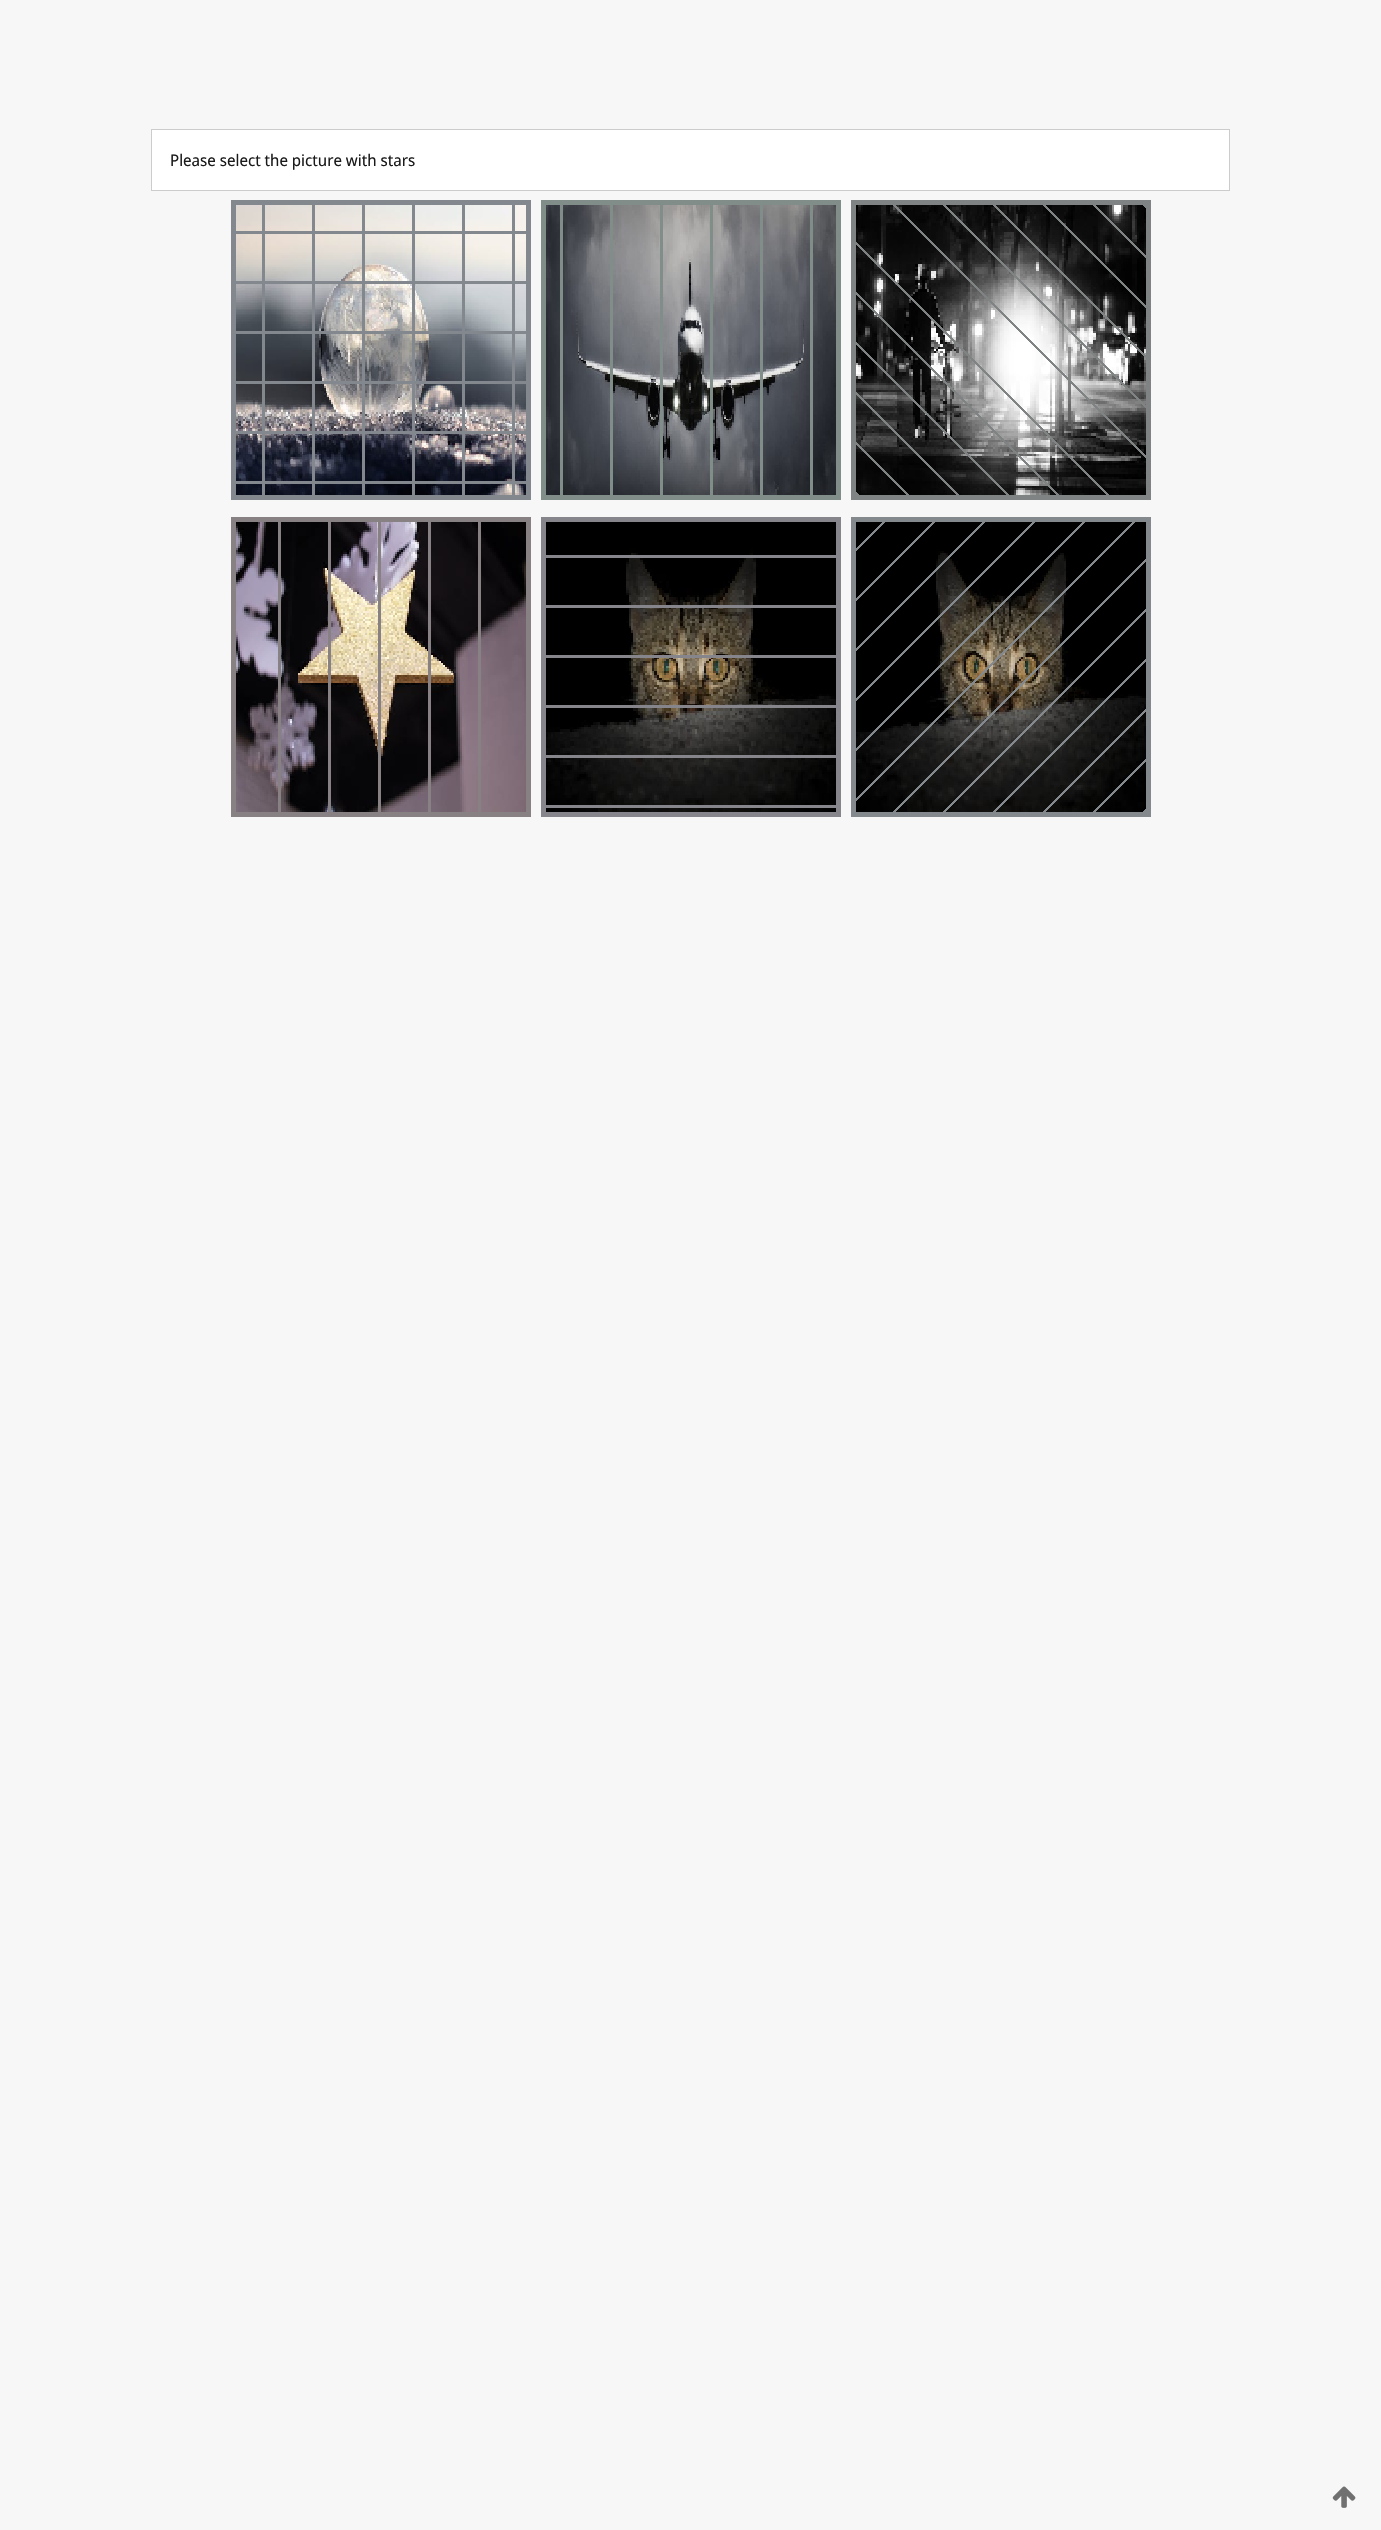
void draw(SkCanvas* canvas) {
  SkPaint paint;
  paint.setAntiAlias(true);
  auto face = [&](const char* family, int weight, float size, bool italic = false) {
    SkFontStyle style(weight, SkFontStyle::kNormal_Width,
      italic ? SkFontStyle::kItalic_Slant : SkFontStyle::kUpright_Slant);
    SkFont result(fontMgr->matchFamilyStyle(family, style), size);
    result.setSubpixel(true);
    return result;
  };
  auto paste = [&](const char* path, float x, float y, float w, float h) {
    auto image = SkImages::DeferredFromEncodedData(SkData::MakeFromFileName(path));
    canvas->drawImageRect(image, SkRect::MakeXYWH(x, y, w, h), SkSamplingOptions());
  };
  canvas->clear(0xfff7f7f7);
  paint.setColor(0xffffffff);
  canvas->drawRect(SkRect::MakeXYWH(151.5f, 129.5f, 1078, 61), paint);
  paint.setStroke(true);
  paint.setStrokeWidth(1);
  paint.setColor(0xffcccccc);
  canvas->drawRect(SkRect::MakeXYWH(151.5f, 129.5f, 1078, 61), paint);
  paste("img/1.png", 231, 200, 300, 300);
  paste("img/2.png", 541, 200, 300, 300);
  paste("img/3.png", 851, 200, 300, 300);
  paste("img/4.png", 231, 517, 300, 300);
  paste("img/5.png", 541, 517, 300, 300);
  paste("img/6.png", 851, 517, 300, 300);
  paste("img/7.png", 1332, 2486, 24, 22);
  auto f0 = face("Noto Sans Display", 400, 16);
  paint.setStroke(false);
  paint.setColor(0xff1a1a1a);
  canvas->drawString("Please select the picture with stars", 170, 166, f0, paint);
}
